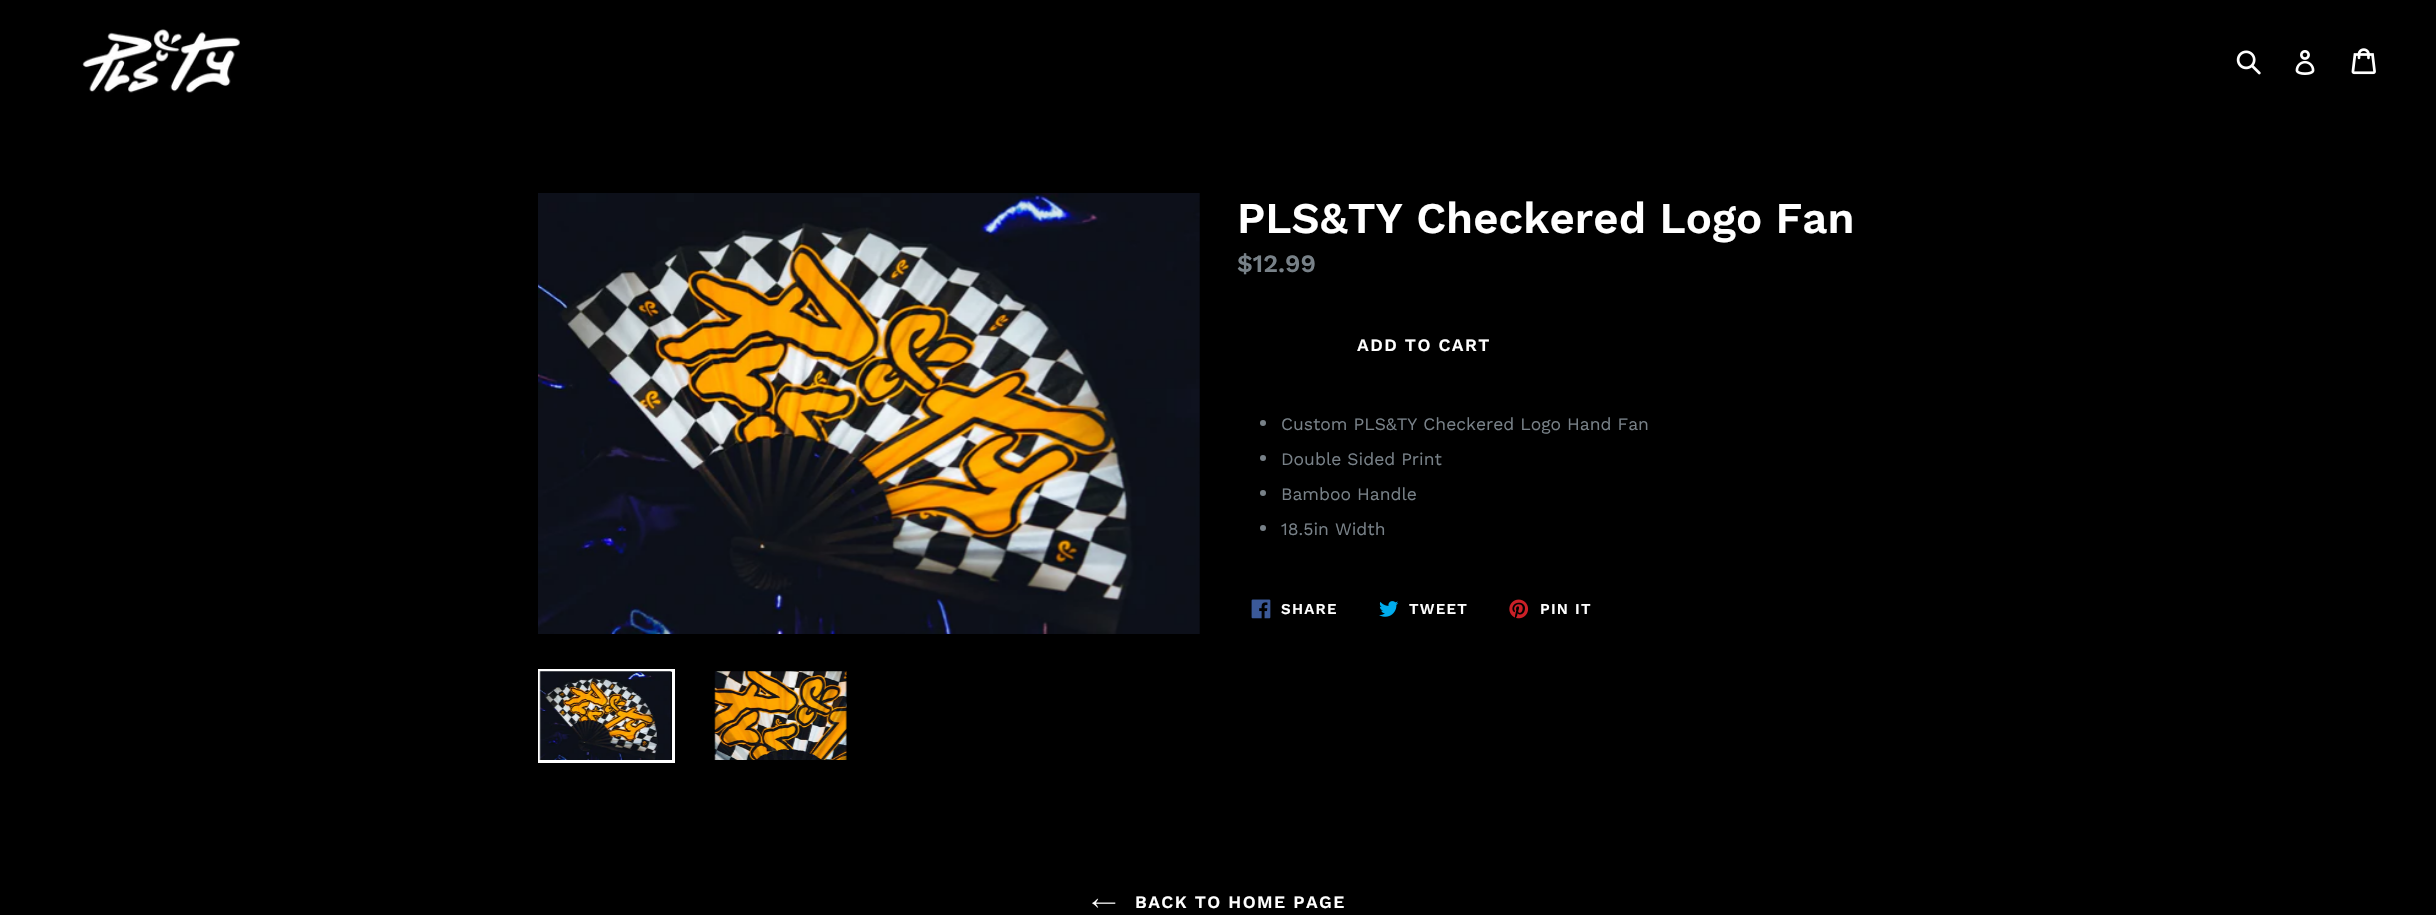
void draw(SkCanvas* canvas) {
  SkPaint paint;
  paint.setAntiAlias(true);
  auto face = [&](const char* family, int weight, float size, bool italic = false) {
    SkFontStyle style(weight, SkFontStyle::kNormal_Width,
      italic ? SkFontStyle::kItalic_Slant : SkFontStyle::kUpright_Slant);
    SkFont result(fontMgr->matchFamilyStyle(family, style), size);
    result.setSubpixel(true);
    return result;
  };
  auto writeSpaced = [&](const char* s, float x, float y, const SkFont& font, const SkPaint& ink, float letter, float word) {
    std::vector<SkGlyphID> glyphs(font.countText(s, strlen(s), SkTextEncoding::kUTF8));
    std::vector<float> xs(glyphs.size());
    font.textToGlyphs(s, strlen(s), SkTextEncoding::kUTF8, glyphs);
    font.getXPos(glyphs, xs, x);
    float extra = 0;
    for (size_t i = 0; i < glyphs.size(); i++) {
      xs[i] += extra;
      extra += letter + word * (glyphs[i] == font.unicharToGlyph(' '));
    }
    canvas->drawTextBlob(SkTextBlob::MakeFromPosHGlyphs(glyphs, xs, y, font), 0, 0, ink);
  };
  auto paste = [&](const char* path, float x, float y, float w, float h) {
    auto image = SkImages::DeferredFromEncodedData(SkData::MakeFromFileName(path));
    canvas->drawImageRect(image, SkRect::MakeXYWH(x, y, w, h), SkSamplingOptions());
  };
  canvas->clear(0xff000000);
  paste("img/1.png", 82, 29, 158, 64);
  paste("img/2.png", 2236, 50, 25, 25);
  paste("img/3.png", 2295, 50, 20, 25);
  paste("img/4.png", 2351, 48, 25, 27);
  paste("img/5.png", 538, 193, 662, 441);
  paint.setStroke(true);
  paint.setStrokeWidth(3);
  paint.setColor(0xffffffff);
  canvas->drawRect(SkRect::MakeXYWH(539.5f, 670.5f, 134, 91), paint);
  paste("img/6.png", 539, 671, 133, 89);
  paste("img/7.png", 714, 671, 133, 89);
  paint.setStroke(false);
  paint.setColor(0xff788188);
  canvas->drawCircle(1263, 423, 3, paint);
  canvas->drawCircle(1263, 458, 3, paint);
  canvas->drawCircle(1263, 493, 3, paint);
  canvas->drawCircle(1263, 528, 3, paint);
  paste("img/8.png", 1251, 599, 20, 20);
  paste("img/9.png", 1379, 601, 20, 16);
  paste("img/10.png", 1509, 599, 20, 20);
  paste("img/11.png", 1092, 898, 24, 10);
  auto f0 = face("Work Sans", 600, 43.75f);
  paint.setColor(0xffffffff);
  canvas->drawString("PLS&TY Checkered Logo Fan", 1237, 233, f0, paint);
  auto f1 = face("Work Sans", 600, 25);
  paint.setColor(0xff788188);
  canvas->drawString("$12.99", 1237, 272, f1, paint);
  auto f2 = face("Work Sans", 600, 17.5f);
  paint.setColor(0xffffffff);
  writeSpaced("ADD TO CART", 1357, 351, f2, paint, 1.4f, 0);
  auto f3 = face("Work Sans", 400, 17.5f);
  paint.setColor(0xff788188);
  {
    const struct { const char* s; float x, y; } items[] = {
      {"Custom PLS&TY Checkered Logo Hand Fan", 1281, 430},
      {"Double Sided Print", 1281, 465},
      {"Bamboo Handle", 1281, 500},
      {"18.5in Width", 1281, 535},
    };
    for (auto [s, x, y] : items) {
      canvas->drawString(s, x, y, f3, paint);
    }
  }
  auto f4 = face("Work Sans", 600, 15);
  paint.setColor(0xffffffff);
  {
    const struct { const char* s; float x, y; } items[] = {
      {"SHARE", 1281, 614},
      {"TWEET", 1409, 614},
      {"PIN IT", 1540, 614},
    };
    for (auto [s, x, y] : items) {
      writeSpaced(s, x, y, f4, paint, 1.25f, 0);
    }
  }
  writeSpaced("BACK TO HOME PAGE", 1135, 908, f2, paint, 1.4f, 0);
}
